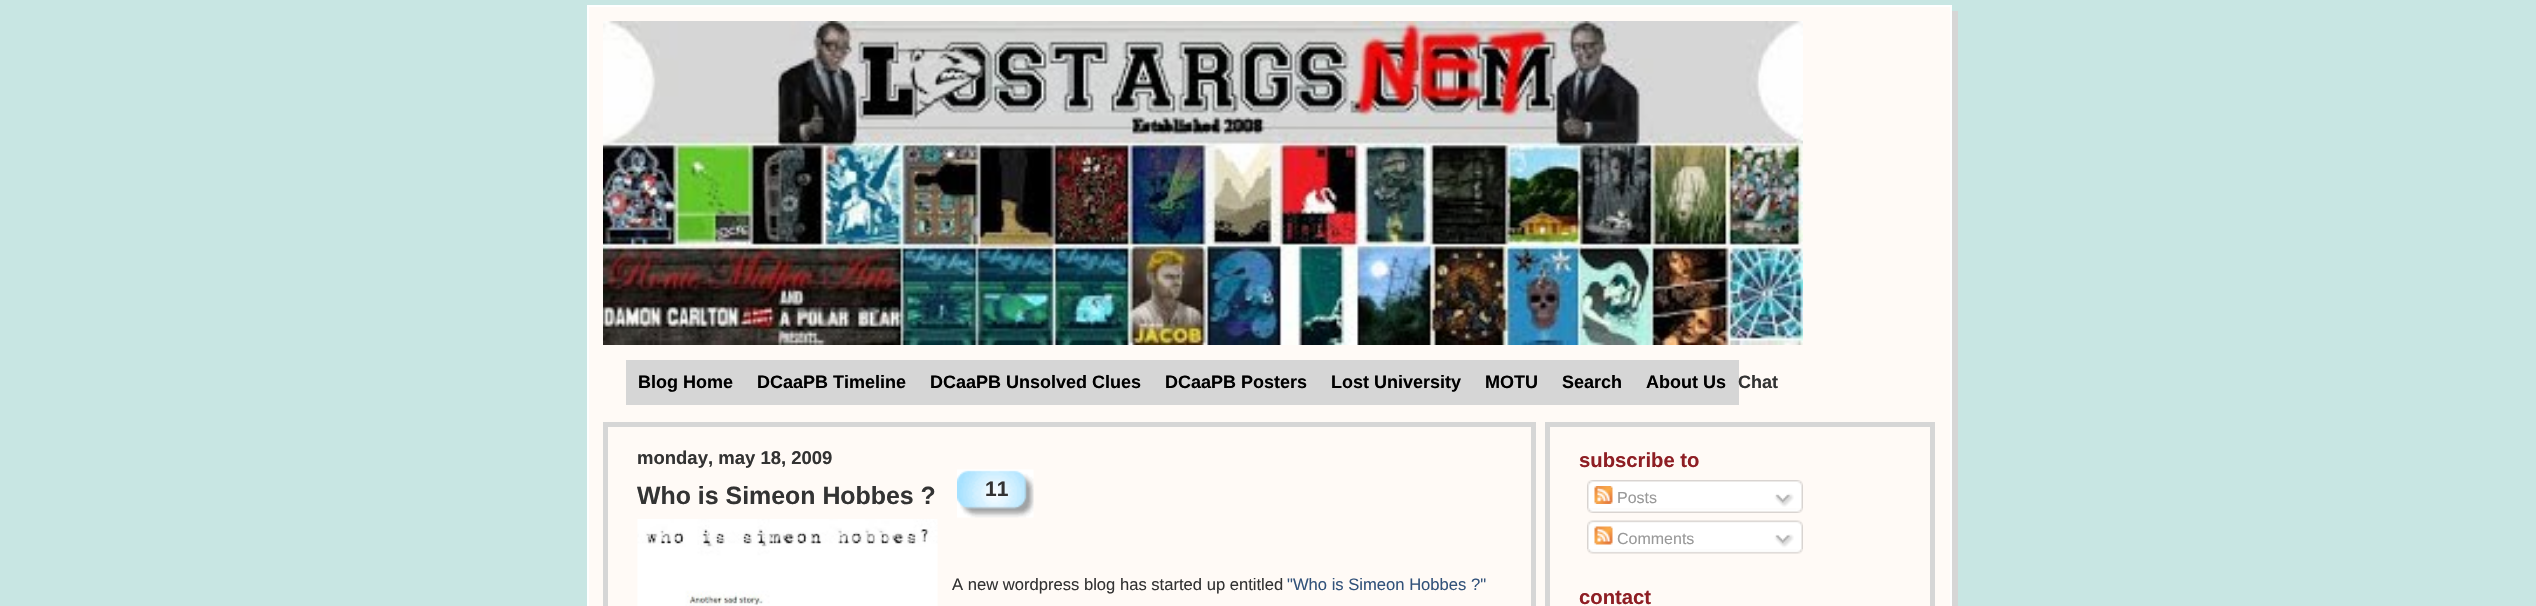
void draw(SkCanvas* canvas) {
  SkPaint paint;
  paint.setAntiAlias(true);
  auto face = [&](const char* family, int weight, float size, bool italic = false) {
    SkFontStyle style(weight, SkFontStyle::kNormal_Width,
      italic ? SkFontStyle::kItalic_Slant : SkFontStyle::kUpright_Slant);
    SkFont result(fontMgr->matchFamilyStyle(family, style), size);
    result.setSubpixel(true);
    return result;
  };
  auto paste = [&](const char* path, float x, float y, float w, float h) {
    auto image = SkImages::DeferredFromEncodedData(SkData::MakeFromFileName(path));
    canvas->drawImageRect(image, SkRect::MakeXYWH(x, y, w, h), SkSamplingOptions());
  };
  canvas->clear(0xffc8e6e3);
  paint.setColor(0xffd6d6d6);
  canvas->drawRect(SkRect::MakeXYWH(1952, 11, 6, 595), paint);
  paint.setColor(0xfffffaf6);
  canvas->drawRect(SkRect::MakeXYWH(588, 6, 1363, 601), paint);
  paint.setStroke(true);
  paint.setStrokeWidth(2);
  paint.setColor(0xffffffff);
  canvas->drawRect(SkRect::MakeXYWH(588, 6, 1363, 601), paint);
  paste("img/1.png", 603, 21, 1200, 324);
  paint.setStroke(false);
  paint.setColor(0xffd6d6d6);
  canvas->drawRect(SkRect::MakeXYWH(626, 360, 1113, 45), paint);
  paint.setStroke(true);
  paint.setStrokeWidth(5);
  canvas->drawRect(SkRect::MakeXYWH(605.5f, 424.5f, 928, 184), paint);
  paste("img/2.png", 957, 469, 77, 49);
  paste("img/3.png", 637, 519, 301, 87);
  canvas->drawRect(SkRect::MakeXYWH(1547.5f, 424.5f, 385, 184), paint);
  paste("img/4.png", 1587, 480, 216, 29);
  paste("img/5.png", 1594, 486, 19, 18);
  paste("img/6.png", 1774, 493, 20, 14);
  paste("img/7.png", 1587, 508, 216, 5);
  paste("img/8.png", 1587, 520, 216, 29);
  paste("img/9.png", 1594, 526, 19, 19);
  paste("img/10.png", 1774, 534, 20, 14);
  paste("img/11.png", 1587, 549, 216, 5);
  auto f0 = face("Liberation Sans", 700, 18);
  paint.setStroke(false);
  paint.setColor(0xff000000);
  {
    const struct { const char* s; float x, y; } items[] = {
      {"Blog Home", 638, 388},
      {"DCaaPB Timeline", 757, 388},
      {"DCaaPB Unsolved Clues", 930, 388},
      {"DCaaPB Posters", 1165, 388},
      {"Lost University", 1331, 388},
      {"MOTU", 1485, 388},
      {"Search", 1562, 388},
      {"About Us", 1646, 388},
    };
    for (auto [s, x, y] : items) {
      canvas->drawString(s, x, y, f0, paint);
    }
  }
  paint.setColor(0xff333333);
  canvas->drawString("Chat", 1738, 388, f0, paint);
  auto f1 = face("Liberation Sans", 700, 18.5f);
  canvas->drawString("monday, may 18, 2009", 637, 464, f1, paint);
  auto f2 = face("Liberation Sans", 700, 24.9f);
  canvas->drawString("Who is Simeon Hobbes ?", 637, 504, f2, paint);
  auto f3 = face("Liberation Sans", 700, 21);
  canvas->drawString("11", 985, 496, f3, paint);
  auto f4 = face("Liberation Sans", 400, 16.6f);
  canvas->drawString("A new wordpress blog has started up entitled", 952, 590, f4, paint);
  paint.setColor(0xff32527a);
  canvas->drawString("\"Who is Simeon Hobbes ?\"", 1287, 590, f4, paint);
  auto f5 = face("Liberation Sans", 700, 20.25f);
  paint.setColor(0xff8e1e24);
  canvas->drawString("subscribe to", 1579, 467, f5, paint);
  auto f6 = face("Liberation Sans", 400, 16);
  paint.setColor(0xff999999);
  canvas->drawString("Posts", 1617, 503, f6, paint);
  canvas->drawString("Comments", 1617, 544, f6, paint);
  paint.setColor(0xff8e1e24);
  canvas->drawString("contact", 1579, 604, f5, paint);
}
